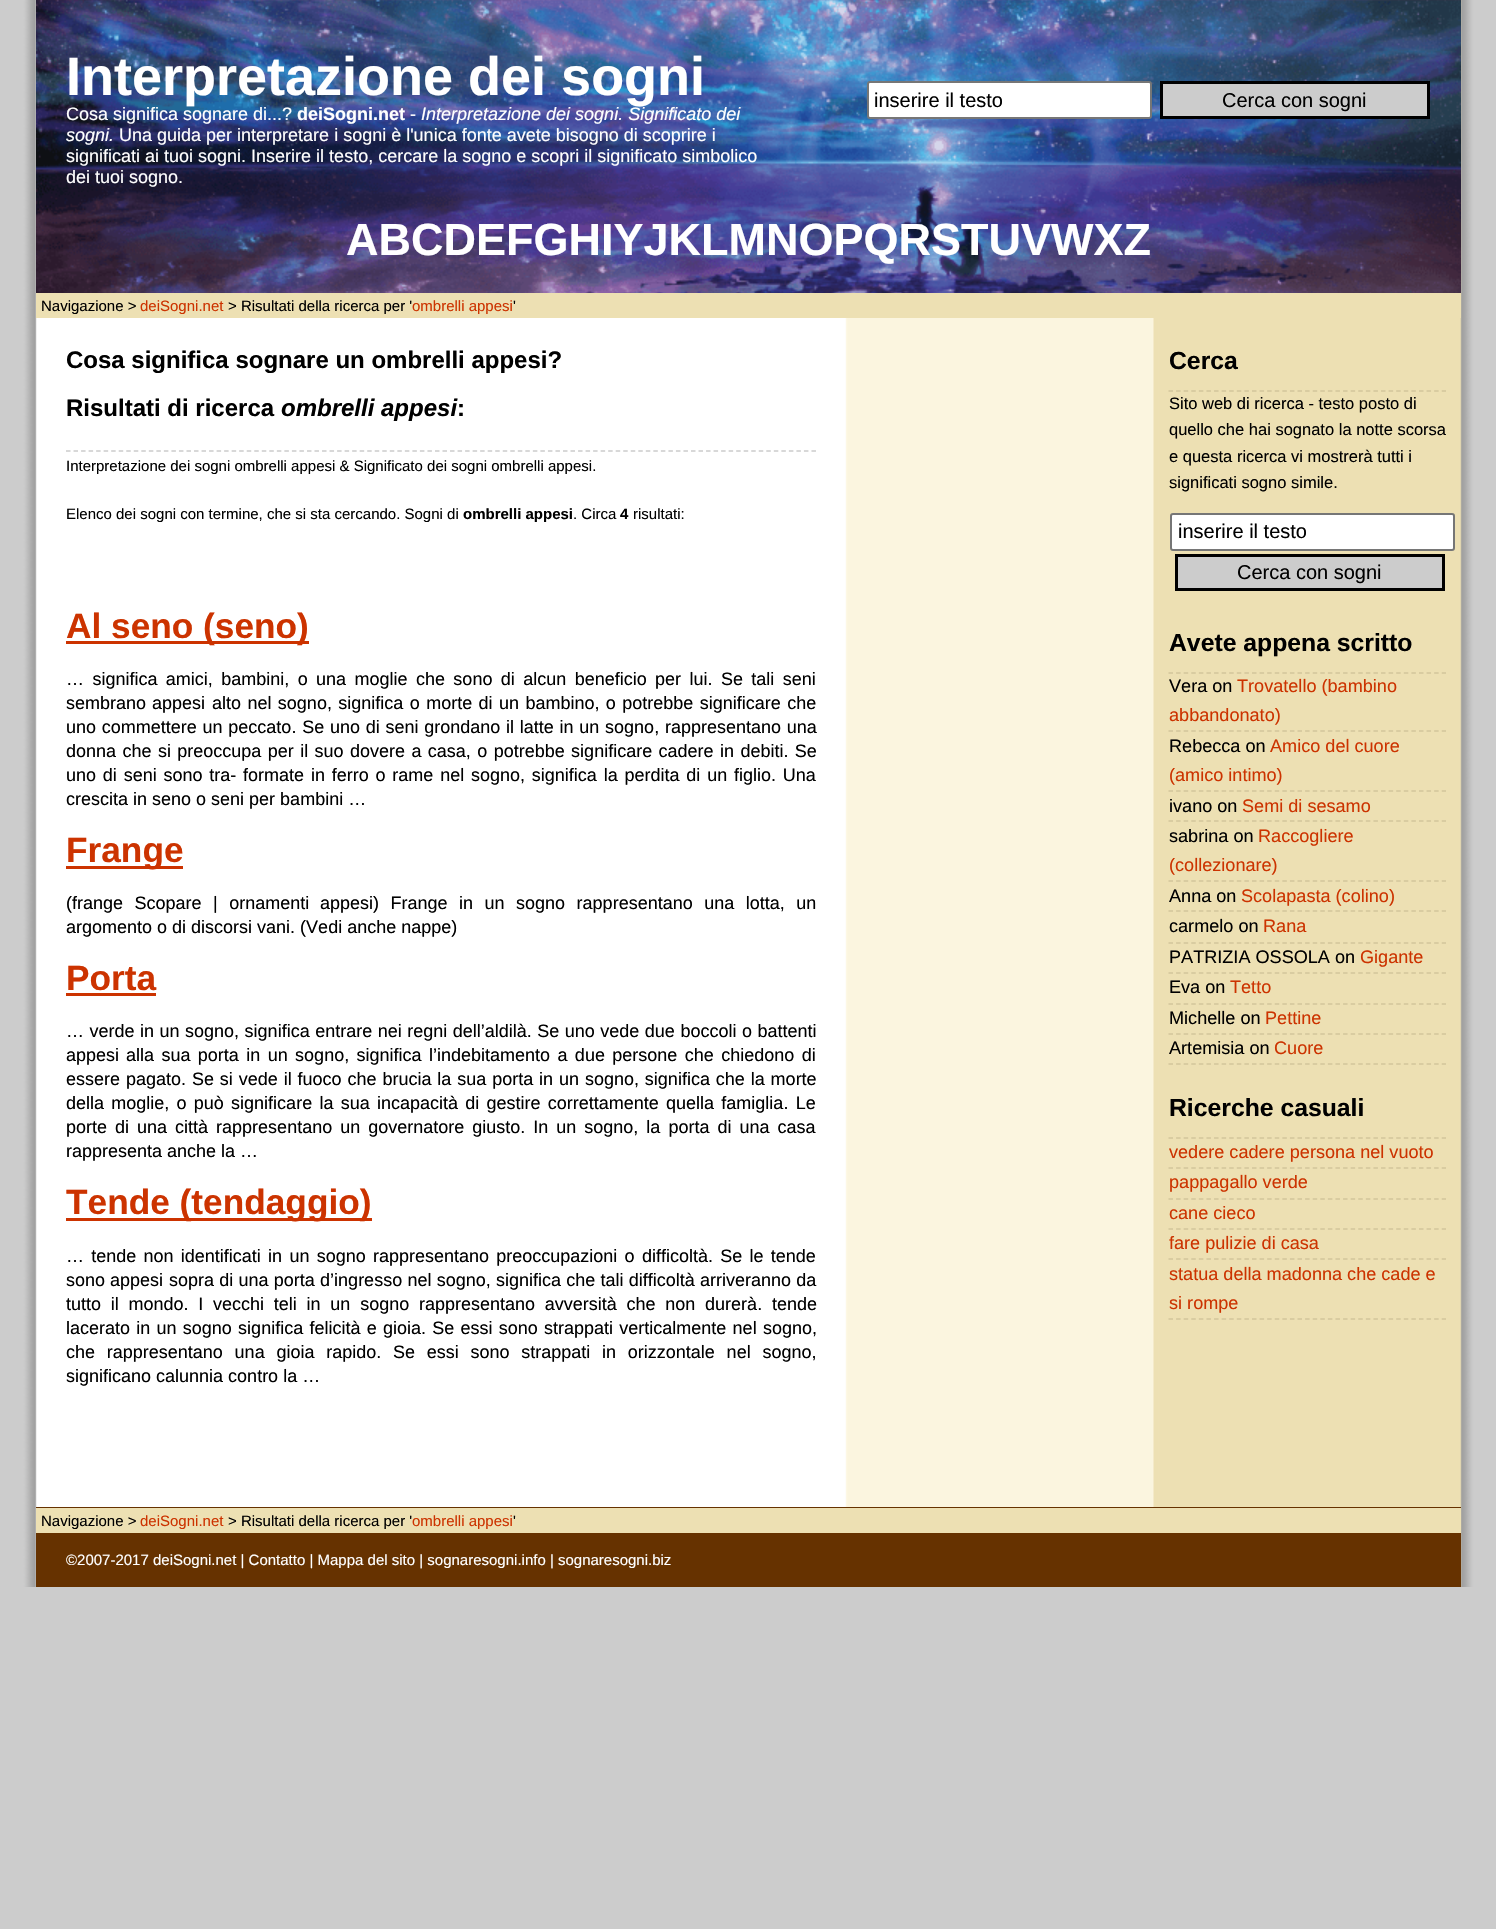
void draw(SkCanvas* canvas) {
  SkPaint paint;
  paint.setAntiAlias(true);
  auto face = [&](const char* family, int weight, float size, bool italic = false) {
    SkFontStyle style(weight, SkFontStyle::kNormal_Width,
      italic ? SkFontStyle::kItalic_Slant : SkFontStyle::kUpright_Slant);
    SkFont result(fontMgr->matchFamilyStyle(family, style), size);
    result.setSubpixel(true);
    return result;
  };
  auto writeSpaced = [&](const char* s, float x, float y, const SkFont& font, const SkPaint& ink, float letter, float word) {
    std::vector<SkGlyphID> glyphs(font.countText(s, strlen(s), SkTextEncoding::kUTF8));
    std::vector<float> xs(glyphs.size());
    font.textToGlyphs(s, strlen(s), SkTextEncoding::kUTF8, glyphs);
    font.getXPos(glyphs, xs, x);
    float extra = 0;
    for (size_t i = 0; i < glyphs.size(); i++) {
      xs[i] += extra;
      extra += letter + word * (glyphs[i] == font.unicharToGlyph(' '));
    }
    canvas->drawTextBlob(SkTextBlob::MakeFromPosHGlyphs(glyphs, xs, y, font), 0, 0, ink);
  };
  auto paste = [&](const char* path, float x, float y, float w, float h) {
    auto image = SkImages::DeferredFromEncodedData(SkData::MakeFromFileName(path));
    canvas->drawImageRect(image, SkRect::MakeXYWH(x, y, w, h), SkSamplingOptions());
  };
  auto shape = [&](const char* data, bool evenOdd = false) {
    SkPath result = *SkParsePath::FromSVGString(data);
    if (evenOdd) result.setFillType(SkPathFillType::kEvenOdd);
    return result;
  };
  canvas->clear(0xffcccccc);
  paste("img/1.png", 21, 0, 1455, 1587);
  paste("img/2.png", 36, 0, 1425, 293);
  paint.setColor(0xffffffff);
  canvas->drawRoundRect(SkRect::MakeXYWH(868, 82, 283, 36), 2, 2, paint);
  paint.setStroke(true);
  paint.setStrokeWidth(2);
  paint.setColor(0xff767676);
  canvas->drawRoundRect(SkRect::MakeXYWH(868, 82, 283, 36), 2, 2, paint);
  paint.setStroke(false);
  paint.setColor(0xffcccccc);
  canvas->drawRect(SkRect::MakeXYWH(1161.5f, 82.5f, 267, 35), paint);
  paint.setStroke(true);
  paint.setStrokeWidth(3);
  paint.setColor(0xff000000);
  canvas->drawRect(SkRect::MakeXYWH(1161.5f, 82.5f, 267, 35), paint);
  paint.setStroke(false);
  paint.setColor(0xffede0b3);
  canvas->drawRect(SkRect::MakeXYWH(36, 293, 1425, 25), paint);
  paint.setStroke(true);
  paint.setStrokeWidth(1.5f);
  paint.setColor(0xffcccccc);
  paint.setPathEffect(SkDashPathEffect::Make({{4.5f, 3.03f}}, 0));
  canvas->drawPath(shape("M66 451H816"), paint);
  paint.setPathEffect(nullptr);
  paint.setStroke(false);
  {
    const struct { float x, y, w, h; SkColor color; } items[] = {
      {66, 641, 243, 3, 0xffcc3300},
      {66, 866, 117, 3, 0xffcc3300},
      {66, 993, 90, 3, 0xffcc3300},
      {66, 1218, 306, 3, 0xffcc3300},
    };
    for (auto [x, y, w, h, color] : items) {
      paint.setColor(color);
      canvas->drawRect(SkRect::MakeXYWH(x, y, w, h), paint);
    }
  }
  paint.setStroke(true);
  paint.setColor(0xffd3c69b);
  paint.setPathEffect(SkDashPathEffect::Make({{4.5f, 3.09f}}, 0));
  canvas->drawPath(shape("M1168.5 391H1446"), paint);
  paint.setPathEffect(nullptr);
  paint.setStroke(false);
  paint.setColor(0xffffffff);
  canvas->drawRoundRect(SkRect::MakeXYWH(1171, 514, 283, 36), 2, 2, paint);
  paint.setStroke(true);
  paint.setStrokeWidth(2);
  paint.setColor(0xff767676);
  canvas->drawRoundRect(SkRect::MakeXYWH(1171, 514, 283, 36), 2, 2, paint);
  paint.setStroke(false);
  paint.setColor(0xffcccccc);
  canvas->drawRect(SkRect::MakeXYWH(1176.5f, 555.5f, 267, 34), paint);
  paint.setStroke(true);
  paint.setStrokeWidth(3);
  paint.setColor(0xff000000);
  canvas->drawRect(SkRect::MakeXYWH(1176.5f, 555.5f, 267, 34), paint);
  paint.setStrokeWidth(1.5f);
  paint.setColor(0xffd3c69b);
  paint.setPathEffect(SkDashPathEffect::Make({{4.5f, 3.09f}}, 0));
  canvas->drawPath(shape("M1168.5 673H1446"), paint);
  paint.setPathEffect(nullptr);
  paint.setPathEffect(SkDashPathEffect::Make({{4.5f, 3.09f}}, 0));
  canvas->drawPath(shape("M1168.5 731H1446"), paint);
  paint.setPathEffect(nullptr);
  paint.setPathEffect(SkDashPathEffect::Make({{4.5f, 3.09f}}, 0));
  canvas->drawPath(shape("M1168.5 791H1446"), paint);
  paint.setPathEffect(nullptr);
  paint.setPathEffect(SkDashPathEffect::Make({{4.5f, 3.09f}}, 0));
  canvas->drawPath(shape("M1168.5 821H1446"), paint);
  paint.setPathEffect(nullptr);
  paint.setPathEffect(SkDashPathEffect::Make({{4.5f, 3.09f}}, 0));
  canvas->drawPath(shape("M1168.5 881H1446"), paint);
  paint.setPathEffect(nullptr);
  paint.setPathEffect(SkDashPathEffect::Make({{4.5f, 3.09f}}, 0));
  canvas->drawPath(shape("M1168.5 911H1446"), paint);
  paint.setPathEffect(nullptr);
  paint.setPathEffect(SkDashPathEffect::Make({{4.5f, 3.09f}}, 0));
  canvas->drawPath(shape("M1168.5 943H1446"), paint);
  paint.setPathEffect(nullptr);
  paint.setPathEffect(SkDashPathEffect::Make({{4.5f, 3.09f}}, 0));
  canvas->drawPath(shape("M1168.5 973H1446"), paint);
  paint.setPathEffect(nullptr);
  paint.setPathEffect(SkDashPathEffect::Make({{4.5f, 3.09f}}, 0));
  canvas->drawPath(shape("M1168.5 1004H1446"), paint);
  paint.setPathEffect(nullptr);
  paint.setPathEffect(SkDashPathEffect::Make({{4.5f, 3.09f}}, 0));
  canvas->drawPath(shape("M1168.5 1034H1446"), paint);
  paint.setPathEffect(nullptr);
  paint.setPathEffect(SkDashPathEffect::Make({{4.5f, 3.09f}}, 0));
  canvas->drawPath(shape("M1168.5 1064H1446"), paint);
  paint.setPathEffect(nullptr);
  paint.setPathEffect(SkDashPathEffect::Make({{4.5f, 3.09f}}, 0));
  canvas->drawPath(shape("M1168.5 1138H1446"), paint);
  paint.setPathEffect(nullptr);
  paint.setPathEffect(SkDashPathEffect::Make({{4.5f, 3.09f}}, 0));
  canvas->drawPath(shape("M1168.5 1168H1446"), paint);
  paint.setPathEffect(nullptr);
  paint.setPathEffect(SkDashPathEffect::Make({{4.5f, 3.09f}}, 0));
  canvas->drawPath(shape("M1168.5 1199H1446"), paint);
  paint.setPathEffect(nullptr);
  paint.setPathEffect(SkDashPathEffect::Make({{4.5f, 3.09f}}, 0));
  canvas->drawPath(shape("M1168.5 1229H1446"), paint);
  paint.setPathEffect(nullptr);
  paint.setPathEffect(SkDashPathEffect::Make({{4.5f, 3.09f}}, 0));
  canvas->drawPath(shape("M1168.5 1259H1446"), paint);
  paint.setPathEffect(nullptr);
  paint.setPathEffect(SkDashPathEffect::Make({{4.5f, 3.09f}}, 0));
  canvas->drawPath(shape("M1168.5 1319H1446"), paint);
  paint.setPathEffect(nullptr);
  paint.setStroke(false);
  paint.setColor(0xff663200);
  canvas->drawRect(SkRect::MakeXYWH(36, 1507, 1425, 80), paint);
  paint.setColor(0xffede0b3);
  canvas->drawRect(SkRect::MakeXYWH(36, 1508, 1425, 25), paint);
  auto f0 = face("Liberation Sans", 700, 54);
  paint.setColor(0xffffffff);
  canvas->drawString("Interpretazione dei sogni", 66, 95, f0, paint);
  auto f1 = face("Liberation Sans", 400, 18);
  canvas->drawString("Cosa significa sognare di...?", 66, 120, f1, paint);
  auto f2 = face("Liberation Sans", 700, 18);
  canvas->drawString("deiSogni.net", 297, 120, f2, paint);
  canvas->drawString("-", 410, 120, f1, paint);
  auto f3 = face("Liberation Sans", 400, 18, true);
  canvas->drawString("Interpretazione dei sogni. Significato dei", 421, 120, f3, paint);
  canvas->drawString("sogni.", 66, 141, f3, paint);
  {
    const struct { const char* s; float x, y; } items[] = {
      {"Una guida per interpretare i sogni è l'unica fonte avete bisogno di scoprire i", 119, 141},
      {"significati ai tuoi sogni. Inserire il testo, cercare la sogno e scopri il significato simbolico", 66, 162},
      {"dei tuoi sogno.", 66, 183},
    };
    for (auto [s, x, y] : items) {
      canvas->drawString(s, x, y, f1, paint);
    }
  }
  auto f4 = face("Liberation Sans", 400, 20);
  paint.setColor(0xff000000);
  canvas->drawString("inserire il testo", 874, 107, f4, paint);
  canvas->drawString("Cerca con sogni", 1222, 107, f4, paint);
  auto f5 = face("Liberation Sans", 700, 45);
  paint.setColor(0xffffffff);
  canvas->drawString("ABCDEFGHIYJKLMNOPQRSTUVWXZ", 346, 255, f5, paint);
  auto f6 = face("Liberation Sans", 400, 15);
  paint.setColor(0xff000000);
  canvas->drawString("Navigazione >", 41, 311, f6, paint);
  paint.setColor(0xffcc3300);
  canvas->drawString("deiSogni.net", 140, 311, f6, paint);
  paint.setColor(0xff000000);
  canvas->drawString("> Risultati della ricerca per '", 228, 311, f6, paint);
  paint.setColor(0xffcc3300);
  canvas->drawString("ombrelli appesi", 412, 311, f6, paint);
  paint.setColor(0xff000000);
  canvas->drawString("'", 513, 311, f6, paint);
  auto f7 = face("Liberation Sans", 700, 24);
  canvas->drawString("Cosa significa sognare un ombrelli appesi?", 66, 368, f7, paint);
  canvas->drawString("Risultati di ricerca", 66, 416, f7, paint);
  auto f8 = face("Liberation Sans", 700, 24, true);
  canvas->drawString("ombrelli appesi", 281, 416, f8, paint);
  canvas->drawString(":", 457, 416, f7, paint);
  canvas->drawString("Interpretazione dei sogni ombrelli appesi & Significato dei sogni ombrelli appesi.", 66, 471, f6, paint);
  canvas->drawString("Elenco dei sogni con termine, che si sta cercando. Sogni di", 66, 519, f6, paint);
  auto f9 = face("Liberation Sans", 700, 15);
  canvas->drawString("ombrelli appesi", 463, 519, f9, paint);
  canvas->drawString(". Circa", 573, 519, f6, paint);
  canvas->drawString("4", 620, 519, f9, paint);
  canvas->drawString("risultati:", 633, 519, f6, paint);
  auto f10 = face("Liberation Sans", 700, 35.25f);
  paint.setColor(0xffcc3300);
  canvas->drawString("Al seno (seno)", 66, 638, f10, paint);
  paint.setColor(0xff000000);
  writeSpaced("… significa amici, bambini, o una moglie che sono di alcun beneficio per lui. Se tali seni", 66, 685, f1, paint, 0, 3.4f);
  canvas->drawString("sembrano", 66, 709, f1, paint);
  canvas->drawString("appesi", 152, 709, f1, paint);
  writeSpaced("alto nel sogno, significa o morte di un bambino, o potrebbe significare che", 212, 709, f1, paint, 0, 1.4f);
  writeSpaced("uno commettere un peccato. Se uno di seni grondano il latte in un sogno, rappresentano una", 66, 733, f1, paint, 0, 0.75f);
  writeSpaced("donna che si preoccupa per il suo dovere a casa, o potrebbe significare cadere in debiti. Se", 66, 757, f1, paint, 0, 1.4f);
  writeSpaced("uno di seni sono tra- formate in ferro o rame nel sogno, significa la perdita di un figlio. Una", 66, 781, f1, paint, 0, 1.8f);
  canvas->drawString("crescita in seno o seni per bambini …", 66, 805, f1, paint);
  paint.setColor(0xffcc3300);
  canvas->drawString("Frange", 66, 862, f10, paint);
  paint.setColor(0xff000000);
  writeSpaced("(frange Scopare | ornamenti", 66, 909, f1, paint, 0, 6.5f);
  canvas->drawString("appesi", 320, 909, f1, paint);
  writeSpaced(") Frange in un sogno rappresentano una lotta, un", 373, 909, f1, paint, 0, 6.5f);
  canvas->drawString("argomento o di discorsi vani. (Vedi anche nappe)", 66, 933, f1, paint);
  paint.setColor(0xffcc3300);
  canvas->drawString("Porta", 66, 990, f10, paint);
  paint.setColor(0xff000000);
  writeSpaced("… verde in un sogno, significa entrare nei regni dell’aldilà. Se uno vede due boccoli o battenti", 66, 1037, f1, paint, 0, 0.5f);
  canvas->drawString("appesi", 66, 1061, f1, paint);
  writeSpaced("alla sua porta in un sogno, significa l’indebitamento a due persone che chiedono di", 126, 1061, f1, paint, 0, 2.4f);
  writeSpaced("essere pagato. Se si vede il fuoco che brucia la sua porta in un sogno, significa che la morte", 66, 1085, f1, paint, 0, 0.9f);
  writeSpaced("della moglie, o può significare la sua incapacità di gestire correttamente quella famiglia. Le", 66, 1109, f1, paint, 0, 2.25f);
  writeSpaced("porte di una città rappresentano un governatore giusto. In un sogno, la porta di una casa", 66, 1133, f1, paint, 0, 3);
  canvas->drawString("rappresenta anche la …", 66, 1157, f1, paint);
  paint.setColor(0xffcc3300);
  canvas->drawString("Tende (tendaggio)", 66, 1214, f10, paint);
  paint.setColor(0xff000000);
  writeSpaced("… tende non identificati in un sogno rappresentano preoccupazioni o difficoltà. Se le tende", 66, 1262, f1, paint, 0, 2.25f);
  canvas->drawString("sono appesi", 66, 1286, f1, paint);
  writeSpaced("sopra di una porta d’ingresso nel sogno, significa che tali difficoltà arriveranno da", 169, 1286, f1, paint, 0, 0.25f);
  writeSpaced("tutto il mondo. I vecchi teli in un sogno rappresentano avversità che non durerà. tende", 66, 1310, f1, paint, 0, 4.75f);
  writeSpaced("lacerato in un sogno significa felicità e gioia. Se essi sono strappati verticalmente nel sogno,", 66, 1334, f1, paint, 0, 1.25f);
  writeSpaced("che rappresentano una gioia rapido. Se essi sono strappati in orizzontale nel sogno,", 66, 1358, f1, paint, 0, 6.75f);
  canvas->drawString("significano calunnia contro la …", 66, 1382, f1, paint);
  auto f11 = face("Liberation Sans", 700, 24.75f);
  canvas->drawString("Cerca", 1169, 369, f11, paint);
  auto f12 = face("Liberation Sans", 400, 16.5f);
  {
    const struct { const char* s; float x, y; } items[] = {
      {"Sito web di ricerca - testo posto di", 1169, 409},
      {"quello che hai sognato la notte scorsa", 1169, 435},
      {"e questa ricerca vi mostrerà tutti i", 1169, 462},
      {"significati sogno simile.", 1169, 488},
    };
    for (auto [s, x, y] : items) {
      canvas->drawString(s, x, y, f12, paint);
    }
  }
  canvas->drawString("inserire il testo", 1178, 538, f4, paint);
  canvas->drawString("Cerca con sogni", 1237, 579, f4, paint);
  canvas->drawString("Avete appena scritto", 1169, 651, f11, paint);
  auto f13 = face("Liberation Sans", 400, 18.1f);
  canvas->drawString("Vera on", 1169, 692, f13, paint);
  paint.setColor(0xffcc3300);
  canvas->drawString("Trovatello (bambino", 1237, 692, f13, paint);
  canvas->drawString("abbandonato)", 1169, 721, f13, paint);
  paint.setColor(0xff000000);
  canvas->drawString("Rebecca on", 1169, 752, f13, paint);
  paint.setColor(0xffcc3300);
  canvas->drawString("Amico del cuore", 1270, 752, f13, paint);
  canvas->drawString("(amico intimo)", 1169, 781, f13, paint);
  paint.setColor(0xff000000);
  canvas->drawString("ivano on", 1169, 812, f13, paint);
  paint.setColor(0xffcc3300);
  canvas->drawString("Semi di sesamo", 1242, 812, f13, paint);
  paint.setColor(0xff000000);
  canvas->drawString("sabrina on", 1169, 842, f13, paint);
  paint.setColor(0xffcc3300);
  canvas->drawString("Raccogliere", 1258, 842, f13, paint);
  canvas->drawString("(collezionare)", 1169, 871, f13, paint);
  paint.setColor(0xff000000);
  canvas->drawString("Anna on", 1169, 902, f13, paint);
  paint.setColor(0xffcc3300);
  canvas->drawString("Scolapasta (colino)", 1241, 902, f13, paint);
  paint.setColor(0xff000000);
  canvas->drawString("carmelo on", 1169, 932, f13, paint);
  paint.setColor(0xffcc3300);
  canvas->drawString("Rana", 1263, 932, f13, paint);
  paint.setColor(0xff000000);
  canvas->drawString("PATRIZIA OSSOLA on", 1169, 963, f13, paint);
  paint.setColor(0xffcc3300);
  canvas->drawString("Gigante", 1360, 963, f13, paint);
  paint.setColor(0xff000000);
  canvas->drawString("Eva on", 1169, 993, f13, paint);
  paint.setColor(0xffcc3300);
  canvas->drawString("Tetto", 1230, 993, f13, paint);
  paint.setColor(0xff000000);
  canvas->drawString("Michelle on", 1169, 1024, f13, paint);
  paint.setColor(0xffcc3300);
  canvas->drawString("Pettine", 1265, 1024, f13, paint);
  paint.setColor(0xff000000);
  canvas->drawString("Artemisia on", 1169, 1054, f13, paint);
  paint.setColor(0xffcc3300);
  canvas->drawString("Cuore", 1274, 1054, f13, paint);
  paint.setColor(0xff000000);
  canvas->drawString("Ricerche casuali", 1169, 1116, f11, paint);
  paint.setColor(0xffcc3300);
  {
    const struct { const char* s; float x, y; } items[] = {
      {"vedere cadere persona nel vuoto", 1169, 1158},
      {"pappagallo verde", 1169, 1188},
      {"cane cieco", 1169, 1219},
      {"fare pulizie di casa", 1169, 1249},
      {"statua della madonna che cade e", 1169, 1280},
      {"si rompe", 1169, 1309},
    };
    for (auto [s, x, y] : items) {
      canvas->drawString(s, x, y, f13, paint);
    }
  }
  paint.setColor(0xff000000);
  canvas->drawString("Navigazione >", 41, 1526, f6, paint);
  paint.setColor(0xffcc3300);
  canvas->drawString("deiSogni.net", 140, 1526, f6, paint);
  paint.setColor(0xff000000);
  canvas->drawString("> Risultati della ricerca per '", 228, 1526, f6, paint);
  paint.setColor(0xffcc3300);
  canvas->drawString("ombrelli appesi", 412, 1526, f6, paint);
  paint.setColor(0xff000000);
  canvas->drawString("'", 513, 1526, f6, paint);
  paint.setColor(0xffffffff);
  canvas->drawString("©2007-2017 deiSogni.net | Contatto | Mappa del sito | sognaresogni.info | sognaresogni.biz", 66, 1565, f6, paint);
}
